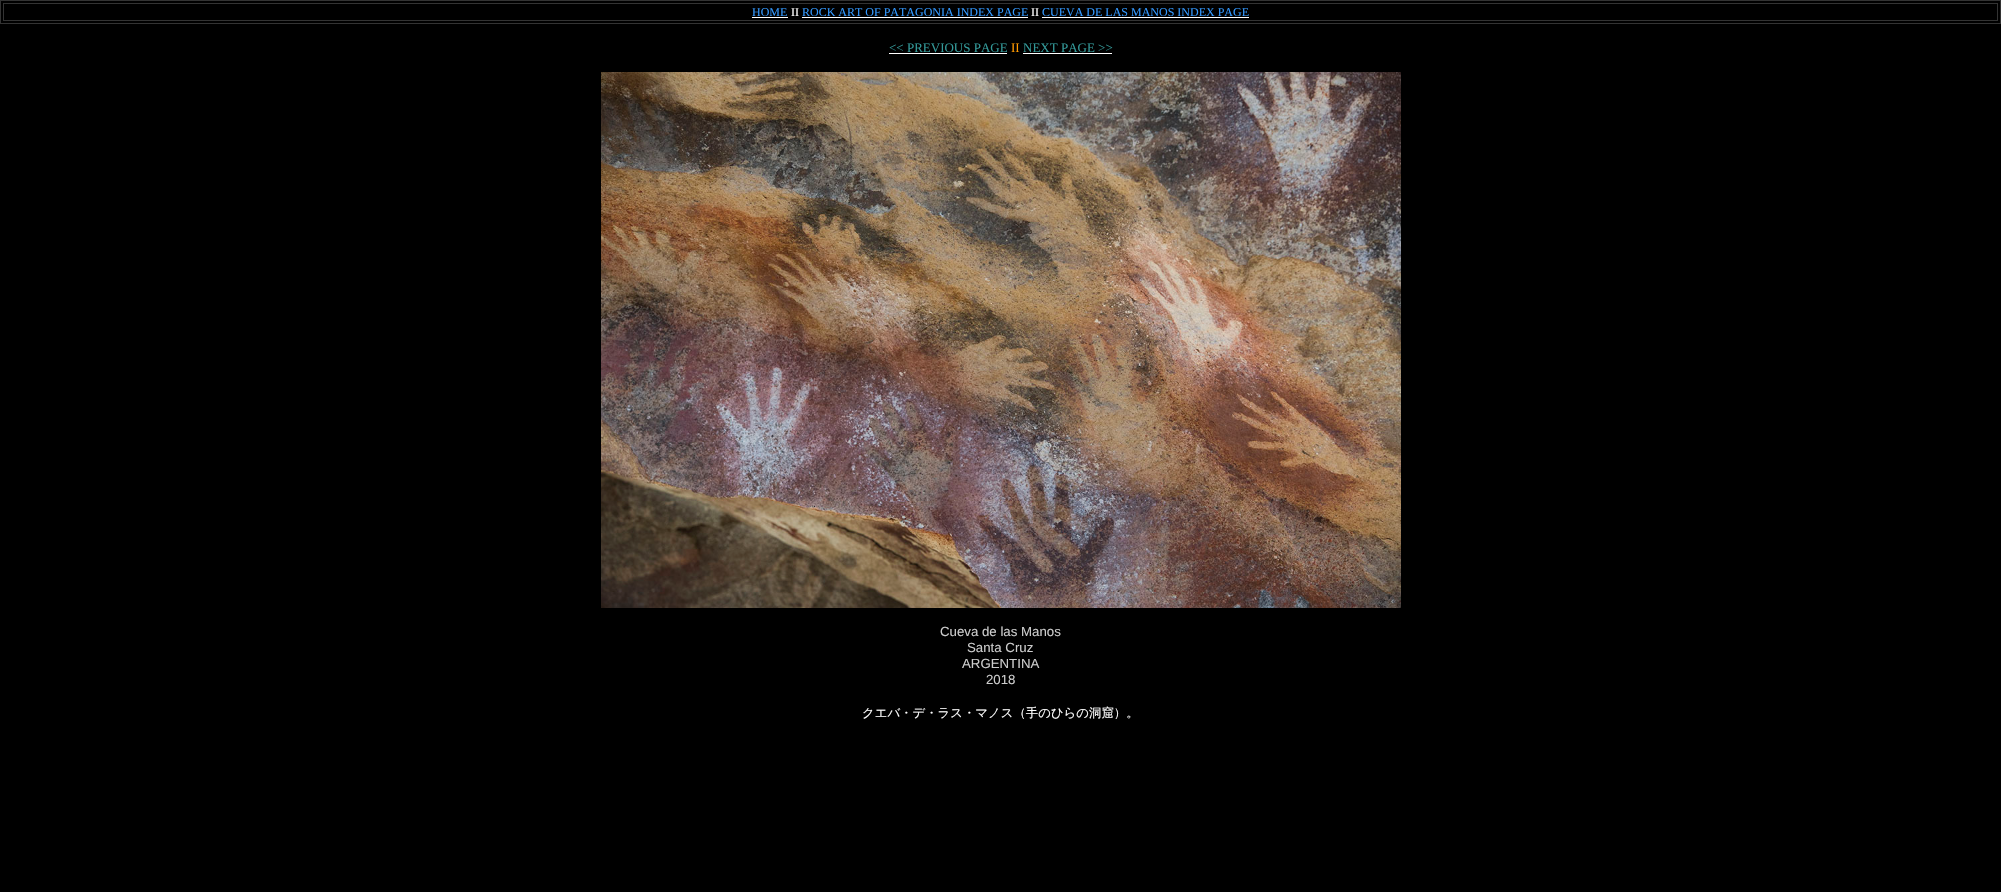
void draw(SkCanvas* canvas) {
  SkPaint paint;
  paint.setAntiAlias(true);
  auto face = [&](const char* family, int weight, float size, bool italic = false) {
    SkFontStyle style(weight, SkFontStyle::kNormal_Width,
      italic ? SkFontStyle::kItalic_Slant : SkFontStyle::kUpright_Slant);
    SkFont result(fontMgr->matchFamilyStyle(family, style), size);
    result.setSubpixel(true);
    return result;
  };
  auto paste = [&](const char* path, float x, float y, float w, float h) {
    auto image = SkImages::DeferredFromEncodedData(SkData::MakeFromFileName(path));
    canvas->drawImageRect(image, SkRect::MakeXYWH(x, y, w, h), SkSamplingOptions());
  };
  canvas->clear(0xff000000);
  paint.setStroke(true);
  paint.setStrokeWidth(1);
  paint.setColor(0xff333333);
  canvas->drawRect(SkRect::MakeXYWH(0.5f, 0.5f, 2000, 23), paint);
  canvas->drawRect(SkRect::MakeXYWH(3.5f, 3.5f, 1994, 17), paint);
  paint.setStroke(false);
  {
    const struct { float x, y, w, h; SkColor color; } items[] = {
      {752, 17, 36, 1, 0xffffffff},
      {802, 17, 226, 1, 0xffffffff},
      {1042, 17, 207, 1, 0xffffffff},
      {889, 53, 118, 1, 0xffffffff},
      {1023, 53, 89, 1, 0xffffffff},
    };
    for (auto [x, y, w, h, color] : items) {
      paint.setColor(color);
      canvas->drawRect(SkRect::MakeXYWH(x, y, w, h), paint);
    }
  }
  paste("img/1.png", 601, 72, 800, 536);
  auto f0 = face("Liberation Serif", 400, 12);
  paint.setColor(0xff3399ff);
  canvas->drawString("HOME", 752, 16, f0, paint);
  paint.setColor(0xffffffff);
  canvas->drawString("II", 791, 16, f0, paint);
  paint.setColor(0xff3399ff);
  canvas->drawString("ROCK ART OF PATAGONIA INDEX PAGE", 802, 16, f0, paint);
  paint.setColor(0xffffffff);
  canvas->drawString("II", 1031, 16, f0, paint);
  paint.setColor(0xff3399ff);
  canvas->drawString("CUEVA DE LAS MANOS INDEX PAGE", 1042, 16, f0, paint);
  auto f1 = face("Liberation Serif", 400, 13);
  paint.setColor(0xff339999);
  canvas->drawString("<< PREVIOUS PAGE", 889, 52, f1, paint);
  paint.setColor(0xffff9900);
  canvas->drawString("II", 1011, 52, f1, paint);
  paint.setColor(0xff339999);
  canvas->drawString("NEXT PAGE >>", 1023, 52, f1, paint);
  auto f2 = face("Liberation Sans", 400, 13.25f);
  paint.setColor(0xffcccccc);
  {
    const struct { const char* s; float x, y; } items[] = {
      {"Cueva de las Manos", 940, 636},
      {"Santa Cruz", 967, 652},
      {"ARGENTINA", 962, 668},
      {"2018", 986, 684},
    };
    for (auto [s, x, y] : items) {
      canvas->drawString(s, x, y, f2, paint);
    }
  }
  auto f3 = face("WenQuanYi Zen Hei", 500, 12.4f);
  paint.setColor(0xffffffff);
  canvas->drawString("クエバ・デ・ラス・マノス（手のひらの洞窟）。", 862, 717, f3, paint);
}
